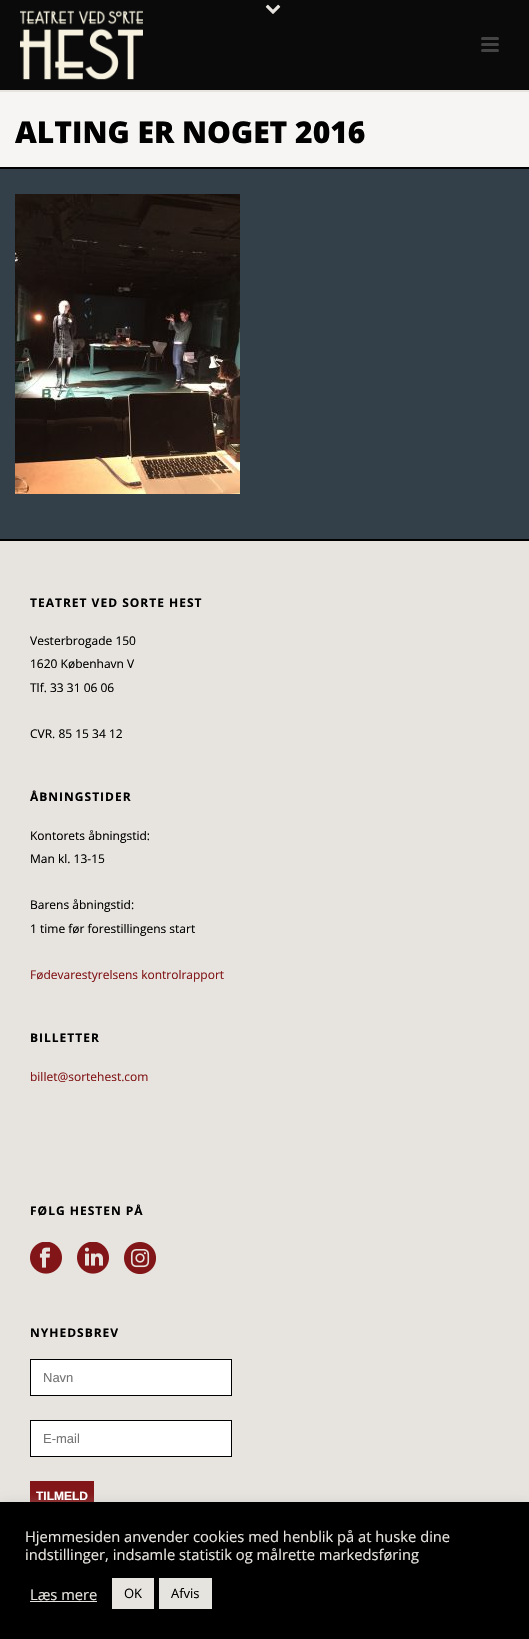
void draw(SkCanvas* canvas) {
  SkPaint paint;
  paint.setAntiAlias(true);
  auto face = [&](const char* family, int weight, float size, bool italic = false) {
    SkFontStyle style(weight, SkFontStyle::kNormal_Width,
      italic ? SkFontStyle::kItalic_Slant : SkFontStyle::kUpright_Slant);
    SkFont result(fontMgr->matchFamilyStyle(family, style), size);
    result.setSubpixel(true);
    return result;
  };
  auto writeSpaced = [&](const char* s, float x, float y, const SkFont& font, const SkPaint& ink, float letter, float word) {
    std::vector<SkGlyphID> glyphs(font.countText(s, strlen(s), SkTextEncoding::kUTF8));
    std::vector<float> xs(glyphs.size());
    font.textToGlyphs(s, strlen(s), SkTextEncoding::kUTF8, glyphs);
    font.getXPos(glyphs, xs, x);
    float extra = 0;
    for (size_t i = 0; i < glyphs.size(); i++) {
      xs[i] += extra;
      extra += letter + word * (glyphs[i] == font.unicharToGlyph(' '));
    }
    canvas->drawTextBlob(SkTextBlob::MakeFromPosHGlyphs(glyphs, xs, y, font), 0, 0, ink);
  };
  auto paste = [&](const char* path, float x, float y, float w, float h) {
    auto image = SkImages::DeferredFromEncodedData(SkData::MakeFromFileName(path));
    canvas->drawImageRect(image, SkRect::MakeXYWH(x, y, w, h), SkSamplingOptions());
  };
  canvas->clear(0xff344049);
  {
    const struct { float x, y, w, h; SkColor color; } items[] = {
      {0, 92, 529, 75, 0xfff7f5f3},
      {0, 167, 529, 2, 0xff000000},
      {0, 90, 529, 2, 0xffe7e4df},
      {0, 0, 529, 90, 0xff0a0a0a},
    };
    for (auto [x, y, w, h, color] : items) {
      paint.setColor(color);
      canvas->drawRect(SkRect::MakeXYWH(x, y, w, h), paint);
    }
  }
  paste("img/1.png", 265, 4, 16, 10);
  paste("img/2.png", 20, 10, 123, 70);
  paint.setColor(0xff444444);
  canvas->drawRoundRect(SkRect::MakeXYWH(481, 37, 18, 3), 1.5f, 1.5f, paint);
  canvas->drawRoundRect(SkRect::MakeXYWH(481, 43, 18, 3), 1.5f, 1.5f, paint);
  canvas->drawRoundRect(SkRect::MakeXYWH(481, 49, 18, 3), 1.5f, 1.5f, paint);
  paste("img/3.png", 15, 194, 225, 300);
  paint.setColor(0xffe7e4df);
  canvas->drawRect(SkRect::MakeXYWH(0, 541, 529, 961), paint);
  paint.setColor(0xff000000);
  canvas->drawRect(SkRect::MakeXYWH(0, 539, 529, 2), paint);
  paste("img/4.png", 30, 1242, 32, 32);
  paste("img/5.png", 77, 1242, 32, 32);
  paste("img/6.png", 124, 1242, 32, 32);
  paint.setColor(0xffffffff);
  canvas->drawRect(SkRect::MakeXYWH(30.5f, 1359.5f, 201, 36), paint);
  paint.setStroke(true);
  paint.setStrokeWidth(1);
  paint.setColor(0xff000000);
  canvas->drawRect(SkRect::MakeXYWH(30.5f, 1359.5f, 201, 36), paint);
  paint.setStroke(false);
  paint.setColor(0xffffffff);
  canvas->drawRect(SkRect::MakeXYWH(30.5f, 1420.5f, 201, 36), paint);
  paint.setStroke(true);
  paint.setColor(0xff000000);
  canvas->drawRect(SkRect::MakeXYWH(30.5f, 1420.5f, 201, 36), paint);
  paint.setStroke(false);
  paint.setColor(0xff821517);
  canvas->drawRect(SkRect::MakeXYWH(30, 1481, 64, 21), paint);
  paint.setColor(0x4dacabab);
  paint.setMaskFilter(SkMaskFilter::MakeBlur(kNormal_SkBlurStyle, 5));
  canvas->drawRect(SkRect::MakeXYWH(0, 1501, 529, 137), paint);
  paint.setMaskFilter(nullptr);
  {
    const struct { float x, y, w, h; SkColor color; } items[] = {
      {0, 1502, 529, 137, 0xff000000},
      {30, 1601, 67, 1, 0xffe7e4df},
      {112, 1578, 42, 31, 0xffe7e4df},
      {159, 1578, 53, 31, 0xffe6e4de},
    };
    for (auto [x, y, w, h, color] : items) {
      paint.setColor(color);
      canvas->drawRect(SkRect::MakeXYWH(x, y, w, h), paint);
    }
  }
  auto f0 = face("Open Sans", 800, 30);
  paint.setColor(0xff000000);
  canvas->drawString("ALTING ER NOGET 2016", 15, 143, f0, paint);
  auto f1 = face("Open Sans", 700, 12);
  writeSpaced("TEATRET VED SORTE HEST", 30, 607, f1, paint, 1, 0);
  auto f2 = face("Open Sans", 400, 12);
  {
    const struct { const char* s; float x, y; } items[] = {
      {"Vesterbrogade 150", 30, 645},
      {"1620 København V", 30, 668},
      {"Tlf. 33 31 06 06", 30, 692},
      {"CVR. 85 15 34 12", 30, 738},
    };
    for (auto [s, x, y] : items) {
      canvas->drawString(s, x, y, f2, paint);
    }
  }
  writeSpaced("ÅBNINGSTIDER", 30, 801, f1, paint, 1, 0);
  {
    const struct { const char* s; float x, y; } items[] = {
      {"Kontorets åbningstid:", 30, 840},
      {"Man kl. 13-15", 30, 863},
      {"Barens åbningstid:", 30, 909},
      {"1 time før forestillingens start", 30, 933},
    };
    for (auto [s, x, y] : items) {
      canvas->drawString(s, x, y, f2, paint);
    }
  }
  paint.setColor(0xff821517);
  canvas->drawString("Fødevarestyrelsens kontrolrapport", 30, 979, f2, paint);
  paint.setColor(0xff000000);
  writeSpaced("BILLETTER", 30, 1042, f1, paint, 1, 0);
  paint.setColor(0xff821517);
  canvas->drawString("billet@sortehest.com", 30, 1081, f2, paint);
  paint.setColor(0xff000000);
  writeSpaced("FØLG HESTEN PÅ", 30, 1215, f1, paint, 1, 0);
  writeSpaced("NYHEDSBREV", 30, 1337, f1, paint, 1, 0);
  auto f3 = face("Liberation Sans", 400, 13);
  paint.setColor(0xff757575);
  canvas->drawString("Navn", 43, 1382, f3, paint);
  canvas->drawString("E-mail", 43, 1443, f3, paint);
  auto f4 = face("Liberation Sans", 700, 12);
  paint.setColor(0xffffffff);
  canvas->drawString("TILMELD", 36, 1500, f4, paint);
  auto f5 = face("Open Sans", 400, 14.7f);
  paint.setColor(0xffe7e4df);
  {
    const struct { const char* s; float x, y; } items[] = {
      {"Hjemmesiden anvender cookies med henblik på at huske dine", 25, 1542},
      {"indstillinger, indsamle statistik og målrette markedsføring", 25, 1560},
      {"Læs mere", 30, 1600},
    };
    for (auto [s, x, y] : items) {
      canvas->drawString(s, x, y, f5, paint);
    }
  }
  auto f6 = face("Open Sans", 400, 13);
  paint.setColor(0xff000000);
  canvas->drawString("OK", 124, 1598, f6, paint);
  canvas->drawString("Afvis", 171, 1598, f6, paint);
}
